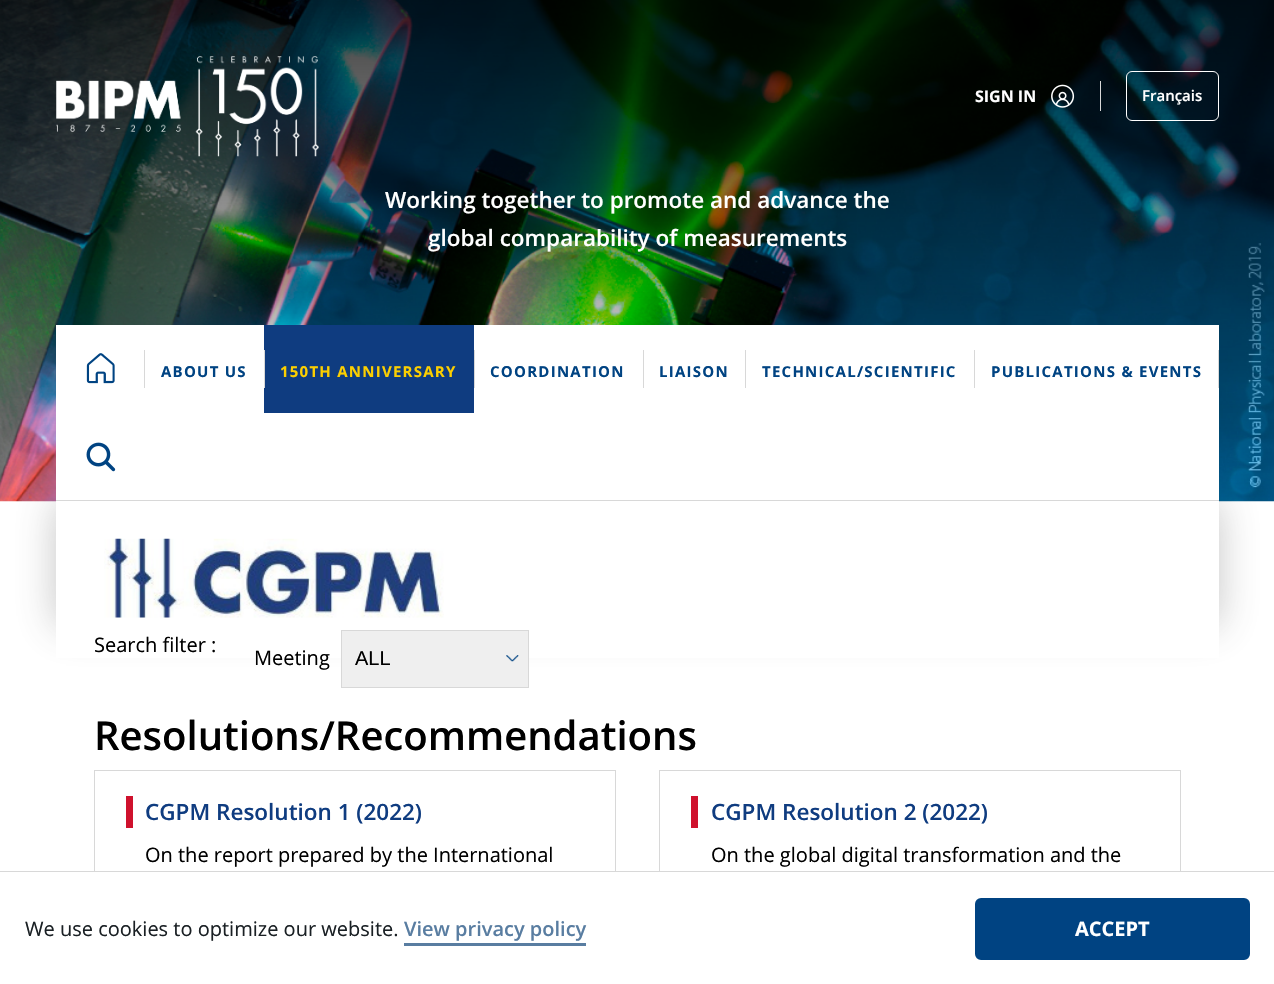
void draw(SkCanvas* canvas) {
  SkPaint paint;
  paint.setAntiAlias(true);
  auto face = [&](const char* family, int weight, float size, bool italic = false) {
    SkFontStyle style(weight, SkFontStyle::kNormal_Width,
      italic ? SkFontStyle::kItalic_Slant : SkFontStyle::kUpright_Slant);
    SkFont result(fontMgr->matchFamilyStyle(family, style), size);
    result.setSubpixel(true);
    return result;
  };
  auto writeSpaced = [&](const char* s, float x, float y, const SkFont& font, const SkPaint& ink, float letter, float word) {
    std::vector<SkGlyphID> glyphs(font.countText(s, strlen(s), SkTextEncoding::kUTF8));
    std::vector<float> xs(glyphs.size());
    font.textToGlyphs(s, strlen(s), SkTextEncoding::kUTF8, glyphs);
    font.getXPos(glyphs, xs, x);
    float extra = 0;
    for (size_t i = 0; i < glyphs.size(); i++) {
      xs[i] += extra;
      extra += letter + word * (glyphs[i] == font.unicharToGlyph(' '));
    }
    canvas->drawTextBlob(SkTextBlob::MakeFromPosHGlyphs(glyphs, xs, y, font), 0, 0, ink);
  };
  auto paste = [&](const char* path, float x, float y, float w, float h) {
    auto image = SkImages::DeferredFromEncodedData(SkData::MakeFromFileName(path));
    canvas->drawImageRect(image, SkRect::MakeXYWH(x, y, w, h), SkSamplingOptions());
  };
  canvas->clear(0xffffffff);
  paste("img/1.png", 0, 0, 1274, 502);
  paste("img/2.png", 56, 56, 263, 101);
  paint.setColor(0xffd8d8d8);
  canvas->drawRect(SkRect::MakeXYWH(1100, 81, 1, 30), paint);
  paste("img/3.png", 1051, 84, 24, 24);
  paint.setStroke(true);
  paint.setStrokeWidth(1);
  paint.setColor(0xffffffff);
  canvas->drawRoundRect(SkRect::MakeXYWH(1126.5f, 71.5f, 92, 49), 5.5f, 5.5f, paint);
  canvas->save();
  canvas->clipRect(SkRect::MakeXYWH(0, 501, 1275, 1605));
  paint.setStroke(false);
  paint.setColor(0x4d3e3e3e);
  paint.setMaskFilter(SkMaskFilter::MakeBlur(kNormal_SkBlurStyle, 19));
  canvas->drawRect(SkRect::MakeXYWH(56, 501, 1163, 125), paint);
  paint.setMaskFilter(nullptr);
  canvas->restore();
  paint.setColor(0xffffffff);
  canvas->drawRect(SkRect::MakeXYWH(56, 325, 1163, 175), paint);
  paint.setColor(0xffd8d8d8);
  canvas->drawRect(SkRect::MakeXYWH(56, 500, 1163, 1), paint);
  paste("img/4.png", 86, 353, 29, 31);
  {
    const struct { float x, y, w, h; SkColor color; } items[] = {
      {144, 350, 1, 38, 0xffd8d8d8},
      {264, 325, 210, 88, 0xff0f3c80},
      {264, 350, 1, 38, 0xffd8d8d8},
      {474, 350, 1, 38, 0xffd8d8d8},
      {643, 350, 1, 38, 0xffd8d8d8},
      {745, 350, 1, 38, 0xffd8d8d8},
      {974, 350, 1, 38, 0xffd8d8d8},
      {1218, 350, 1, 38, 0xffd8d8d8},
    };
    for (auto [x, y, w, h, color] : items) {
      paint.setColor(color);
      canvas->drawRect(SkRect::MakeXYWH(x, y, w, h), paint);
    }
  }
  paste("img/5.png", 86, 442, 30, 30);
  paint.setColor(0xffffffff);
  canvas->drawRect(SkRect::MakeXYWH(56, 501, 1163, 157), paint);
  paste("img/6.png", 104, 538, 340, 80);
  paint.setColor(0xffefefef);
  canvas->drawRect(SkRect::MakeXYWH(342, 631, 186, 56), paint);
  paste("img/7.png", 506, 655, 13, 7);
  paint.setStroke(true);
  paint.setColor(0xffd8d8d8);
  canvas->drawRect(SkRect::MakeXYWH(341.5f, 630.5f, 187, 57), paint);
  canvas->drawRect(SkRect::MakeXYWH(94.5f, 770.5f, 521, 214), paint);
  paint.setStroke(false);
  paint.setColor(0xffcf112d);
  canvas->drawRect(SkRect::MakeXYWH(126, 796, 7, 32), paint);
  paint.setStroke(true);
  paint.setColor(0xffd8d8d8);
  canvas->drawRect(SkRect::MakeXYWH(659.5f, 770.5f, 521, 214), paint);
  paint.setStroke(false);
  {
    const struct { float x, y, w, h; SkColor color; } items[] = {
      {691, 796, 7, 32, 0xffcf112d},
      {94, 872, 1087, 112, 0xffffffff},
      {0, 871, 1274, 1, 0xffd8d8d8},
      {404, 943, 182, 3, 0xff597da1},
    };
    for (auto [x, y, w, h, color] : items) {
      paint.setColor(color);
      canvas->drawRect(SkRect::MakeXYWH(x, y, w, h), paint);
    }
  }
  paint.setColor(0xff004382);
  canvas->drawRoundRect(SkRect::MakeXYWH(977.5f, 900.5f, 270, 57), 3.5f, 3.5f, paint);
  paint.setStroke(true);
  paint.setStrokeWidth(5);
  canvas->drawRoundRect(SkRect::MakeXYWH(977.5f, 900.5f, 270, 57), 3.5f, 3.5f, paint);
  auto f0 = face("Open Sans", 700, 16);
  paint.setStroke(false);
  paint.setColor(0xffffffff);
  canvas->drawString("SIGN IN", 975, 102, f0, paint);
  auto f1 = face("Open Sans", 600, 15);
  canvas->drawString("Français", 1142, 101, f1, paint);
  auto f2 = face("Open Sans", 600, 22.5f);
  canvas->drawString("Working together to promote and advance the", 385, 208, f2, paint);
  canvas->drawString("global comparability of measurements", 428, 246, f2, paint);
  auto f3 = face("Open Sans", 700, 15);
  paint.setColor(0xff004382);
  writeSpaced("ABOUT US", 161, 377, f3, paint, 1.25f, 0);
  paint.setColor(0xfffccf00);
  writeSpaced("150TH ANNIVERSARY", 280, 377, f3, paint, 1.25f, 0);
  paint.setColor(0xff004382);
  {
    const struct { const char* s; float x, y; } items[] = {
      {"COORDINATION", 490, 377},
      {"LIAISON", 659, 377},
      {"TECHNICAL/SCIENTIFIC", 762, 377},
      {"PUBLICATIONS & EVENTS", 991, 377},
    };
    for (auto [s, x, y] : items) {
      writeSpaced(s, x, y, f3, paint, 1.25f, 0);
    }
  }
  auto f4 = face("Open Sans", 400, 20);
  paint.setColor(0xff000000);
  canvas->drawString("Search filter :", 94, 652, f4, paint);
  canvas->drawString("Meeting", 254, 665, f4, paint);
  auto f5 = face("Liberation Sans", 400, 20);
  canvas->drawString("ALL", 355, 665, f5, paint);
  auto f6 = face("Open Sans", 600, 40);
  canvas->drawString("Resolutions/Recommendations", 94, 750, f6, paint);
  paint.setColor(0xff0f3c80);
  canvas->drawString("CGPM Resolution 1 (2022)", 145, 820, f2, paint);
  paint.setColor(0xff000000);
  canvas->drawString("On the report prepared by the International", 145, 862, f4, paint);
  paint.setColor(0xff0f3c80);
  canvas->drawString("CGPM Resolution 2 (2022)", 711, 820, f2, paint);
  paint.setColor(0xff000000);
  canvas->drawString("On the global digital transformation and the", 711, 862, f4, paint);
  paint.setColor(0xff1a2024);
  canvas->drawString("We use cookies to optimize our website.", 25, 936, f4, paint);
  auto f7 = face("Open Sans", 600, 20);
  paint.setColor(0xff597da1);
  canvas->drawString("View privacy policy", 404, 936, f7, paint);
  auto f8 = face("Open Sans", 700, 20);
  paint.setColor(0xffffffff);
  canvas->drawString("ACCEPT", 1075, 936, f8, paint);
}
